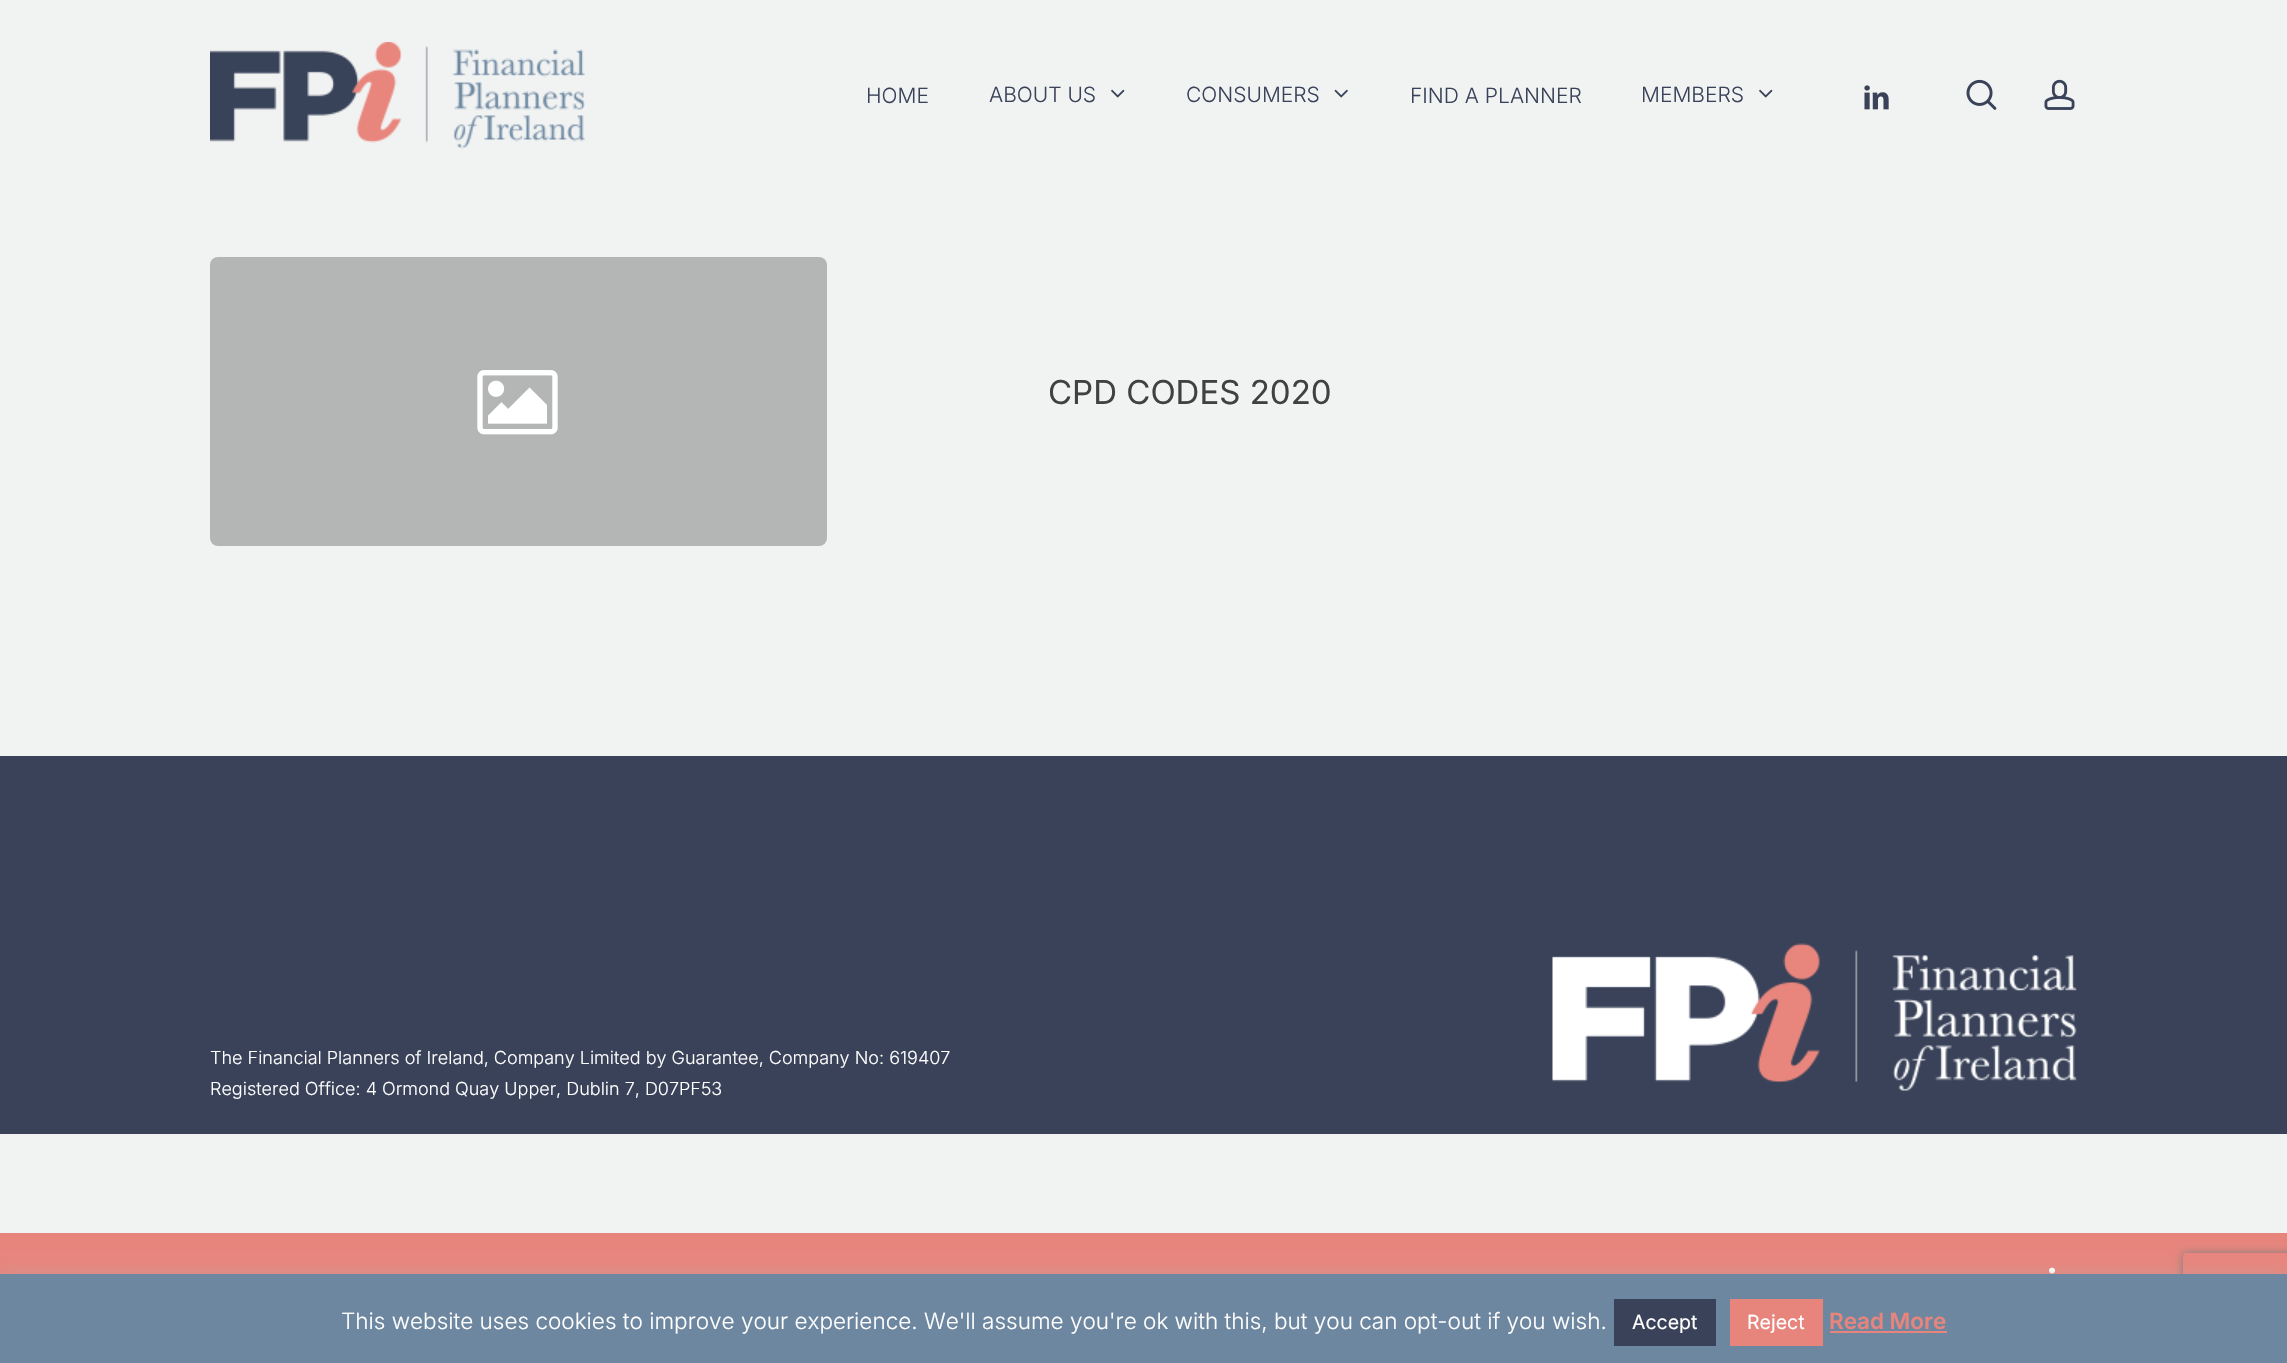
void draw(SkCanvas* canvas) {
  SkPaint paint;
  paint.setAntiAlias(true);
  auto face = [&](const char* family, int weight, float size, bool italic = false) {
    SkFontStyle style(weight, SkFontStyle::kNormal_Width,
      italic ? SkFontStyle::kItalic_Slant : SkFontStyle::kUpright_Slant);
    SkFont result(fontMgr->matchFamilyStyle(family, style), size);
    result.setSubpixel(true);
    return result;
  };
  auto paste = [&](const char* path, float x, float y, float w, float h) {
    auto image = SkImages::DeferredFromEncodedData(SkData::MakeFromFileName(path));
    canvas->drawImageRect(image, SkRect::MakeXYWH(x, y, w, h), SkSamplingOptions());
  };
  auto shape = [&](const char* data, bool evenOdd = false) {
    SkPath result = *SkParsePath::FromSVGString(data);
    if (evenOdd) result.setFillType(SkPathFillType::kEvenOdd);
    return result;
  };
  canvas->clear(0xfff1f2f2);
  paste("img/1.png", 210, 42, 375, 107);
  paste("img/2.png", 1111, 89, 14, 9);
  paste("img/3.png", 1334, 89, 14, 9);
  paste("img/2.png", 1759, 89, 14, 9);
  paste("img/4.png", 1864, 85, 25, 25);
  paste("img/5.png", 1966, 79, 31, 31);
  paste("img/6.png", 2044, 79, 31, 31);
  paint.setColor(0xffb4b5b5);
  canvas->drawRoundRect(SkRect::MakeXYWH(210, 257, 617, 289), 8, 8, paint);
  paste("img/7.png", 477, 370, 81, 65);
  paint.setColor(0xff394259);
  canvas->drawRect(SkRect::MakeXYWH(0, 756, 2287, 378), paint);
  paste("img/8.png", 1552, 943, 525, 148);
  paint.setColor(0xffe7857d);
  canvas->drawRect(SkRect::MakeXYWH(0, 1233, 2287, 41), paint);
  paste("img/9.png", 2049, 1267, 7, 7);
  paint.setColor(0x4dacabab);
  paint.setMaskFilter(SkMaskFilter::MakeBlur(kNormal_SkBlurStyle, 7.5f));
  canvas->drawRect(SkRect::MakeXYWH(0, 1272, 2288, 90), paint);
  paint.setMaskFilter(nullptr);
  canvas->save();
  canvas->clipPath(shape("M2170 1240H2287V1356H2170ZM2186 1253H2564C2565.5 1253 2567 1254.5 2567 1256V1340C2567 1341.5 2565.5 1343 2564 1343H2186C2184.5 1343 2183 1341.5 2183 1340V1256C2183 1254.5 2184.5 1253 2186 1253Z", true), true);
  paint.setColor(0xff808080);
  paint.setMaskFilter(SkMaskFilter::MakeBlur(kNormal_SkBlurStyle, 4));
  canvas->drawRoundRect(SkRect::MakeXYWH(2183, 1253, 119, 90), 3, 3, paint);
  paint.setMaskFilter(nullptr);
  canvas->restore();
  {
    const struct { float x, y, w, h; SkColor color; } items[] = {
      {0, 1274, 2287, 89, 0xff6d87a0},
      {1614, 1299, 102, 47, 0xff394259},
      {1730, 1299, 93, 47, 0xffe7857d},
      {1830, 1331, 117, 2, 0xffe7857d},
    };
    for (auto [x, y, w, h, color] : items) {
      paint.setColor(color);
      canvas->drawRect(SkRect::MakeXYWH(x, y, w, h), paint);
    }
  }
  auto f0 = face("Inter", 300, 21);
  paint.setColor(0xff394259);
  {
    const struct { const char* s; float x, y; } items[] = {
      {"HOME", 866, 103},
      {"ABOUT US", 989, 102},
      {"CONSUMERS", 1186, 102},
      {"FIND A PLANNER", 1410, 103},
      {"MEMBERS", 1641, 102},
    };
    for (auto [s, x, y] : items) {
      canvas->drawString(s, x, y, f0, paint);
    }
  }
  auto f1 = face("Inter", 400, 33);
  paint.setColor(0xff414042);
  canvas->drawString("CPD CODES 2020", 1048, 404, f1, paint);
  auto f2 = face("Inter", 300, 18);
  paint.setColor(0xffffffff);
  canvas->drawString("The Financial Planners of Ireland, Company Limited by Guarantee, Company No: 619407", 210, 1064, f2, paint);
  canvas->drawString("Registered Office: 4 Ormond Quay Upper, Dublin 7, D07PF53", 210, 1095, f2, paint);
  auto f3 = face("Inter", 300, 22.5f);
  canvas->drawString("This website uses cookies to improve your experience. We'll assume you're ok with this, but you can opt-out if you wish.", 341, 1329, f3, paint);
  auto f4 = face("Inter", 400, 19.5f);
  canvas->drawString("Accept", 1632, 1329, f4, paint);
  canvas->drawString("Reject", 1747, 1329, f4, paint);
  auto f5 = face("Inter", 600, 22.5f);
  paint.setColor(0xffe7857d);
  canvas->drawString("Read More", 1829, 1329, f5, paint);
}
